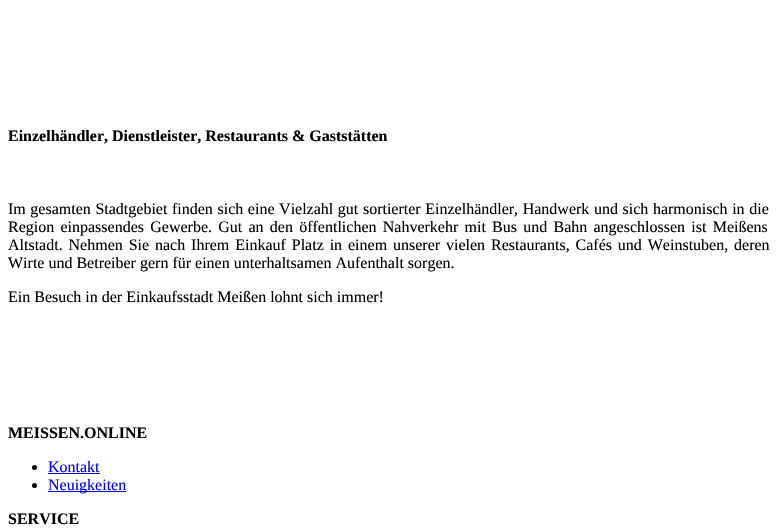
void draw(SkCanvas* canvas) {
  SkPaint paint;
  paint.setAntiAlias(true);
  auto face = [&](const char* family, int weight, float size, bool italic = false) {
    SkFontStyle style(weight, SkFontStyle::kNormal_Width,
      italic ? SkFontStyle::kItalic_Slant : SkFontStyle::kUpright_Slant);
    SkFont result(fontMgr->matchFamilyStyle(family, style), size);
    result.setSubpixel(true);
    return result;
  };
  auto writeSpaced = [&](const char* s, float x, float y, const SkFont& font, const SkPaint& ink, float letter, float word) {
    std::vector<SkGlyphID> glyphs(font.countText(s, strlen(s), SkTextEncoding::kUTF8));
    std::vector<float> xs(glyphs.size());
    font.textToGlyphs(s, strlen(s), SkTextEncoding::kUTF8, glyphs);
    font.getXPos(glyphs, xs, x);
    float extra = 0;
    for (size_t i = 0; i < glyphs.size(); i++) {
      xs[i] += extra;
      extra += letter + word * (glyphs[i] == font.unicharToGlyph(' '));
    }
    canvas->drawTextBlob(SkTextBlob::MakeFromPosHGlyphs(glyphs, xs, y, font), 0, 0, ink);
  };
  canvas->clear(0xffffffff);
  paint.setColor(0xff000000);
  canvas->drawCircle(34.5f, 467.5f, 2.5f, paint);
  paint.setColor(0xff0000ee);
  canvas->drawRect(SkRect::MakeXYWH(48, 473, 52, 1), paint);
  paint.setColor(0xff000000);
  canvas->drawCircle(34.5f, 485.5f, 2.5f, paint);
  paint.setColor(0xff0000ee);
  canvas->drawRect(SkRect::MakeXYWH(48, 491, 78, 1), paint);
  auto f0 = face("Liberation Serif", 700, 16);
  paint.setColor(0xff000000);
  canvas->drawString("Einzelhändler, Dienstleister, Restaurants & Gaststätten", 8, 141, f0, paint);
  auto f1 = face("Liberation Serif", 400, 16);
  writeSpaced("Im gesamten Stadtgebiet finden sich eine Vielzahl gut sortierter Einzelhändler, Handwerk und sich harmonisch in die", 8, 214, f1, paint, 0, 0.6f);
  writeSpaced("Region einpassendes Gewerbe. Gut an den öffentlichen Nahverkehr mit Bus und Bahn angeschlossen ist Meißens", 8, 232, f1, paint, 0, 2.25f);
  writeSpaced("Altstadt. Nehmen Sie nach Ihrem Einkauf Platz in einem unserer vielen Restaurants, Cafés und Weinstuben, deren", 8, 250, f1, paint, 0, 1.9f);
  canvas->drawString("Wirte und Betreiber gern für einen unterhaltsamen Aufenthalt sorgen.", 8, 268, f1, paint);
  canvas->drawString("Ein Besuch in der Einkaufsstadt Meißen lohnt sich immer!", 8, 302, f1, paint);
  canvas->drawString("MEISSEN.ONLINE", 8, 438, f0, paint);
  paint.setColor(0xff0000ee);
  canvas->drawString("Kontakt", 48, 472, f1, paint);
  canvas->drawString("Neuigkeiten", 48, 490, f1, paint);
  paint.setColor(0xff000000);
  canvas->drawString("SERVICE", 8, 524, f0, paint);
}
